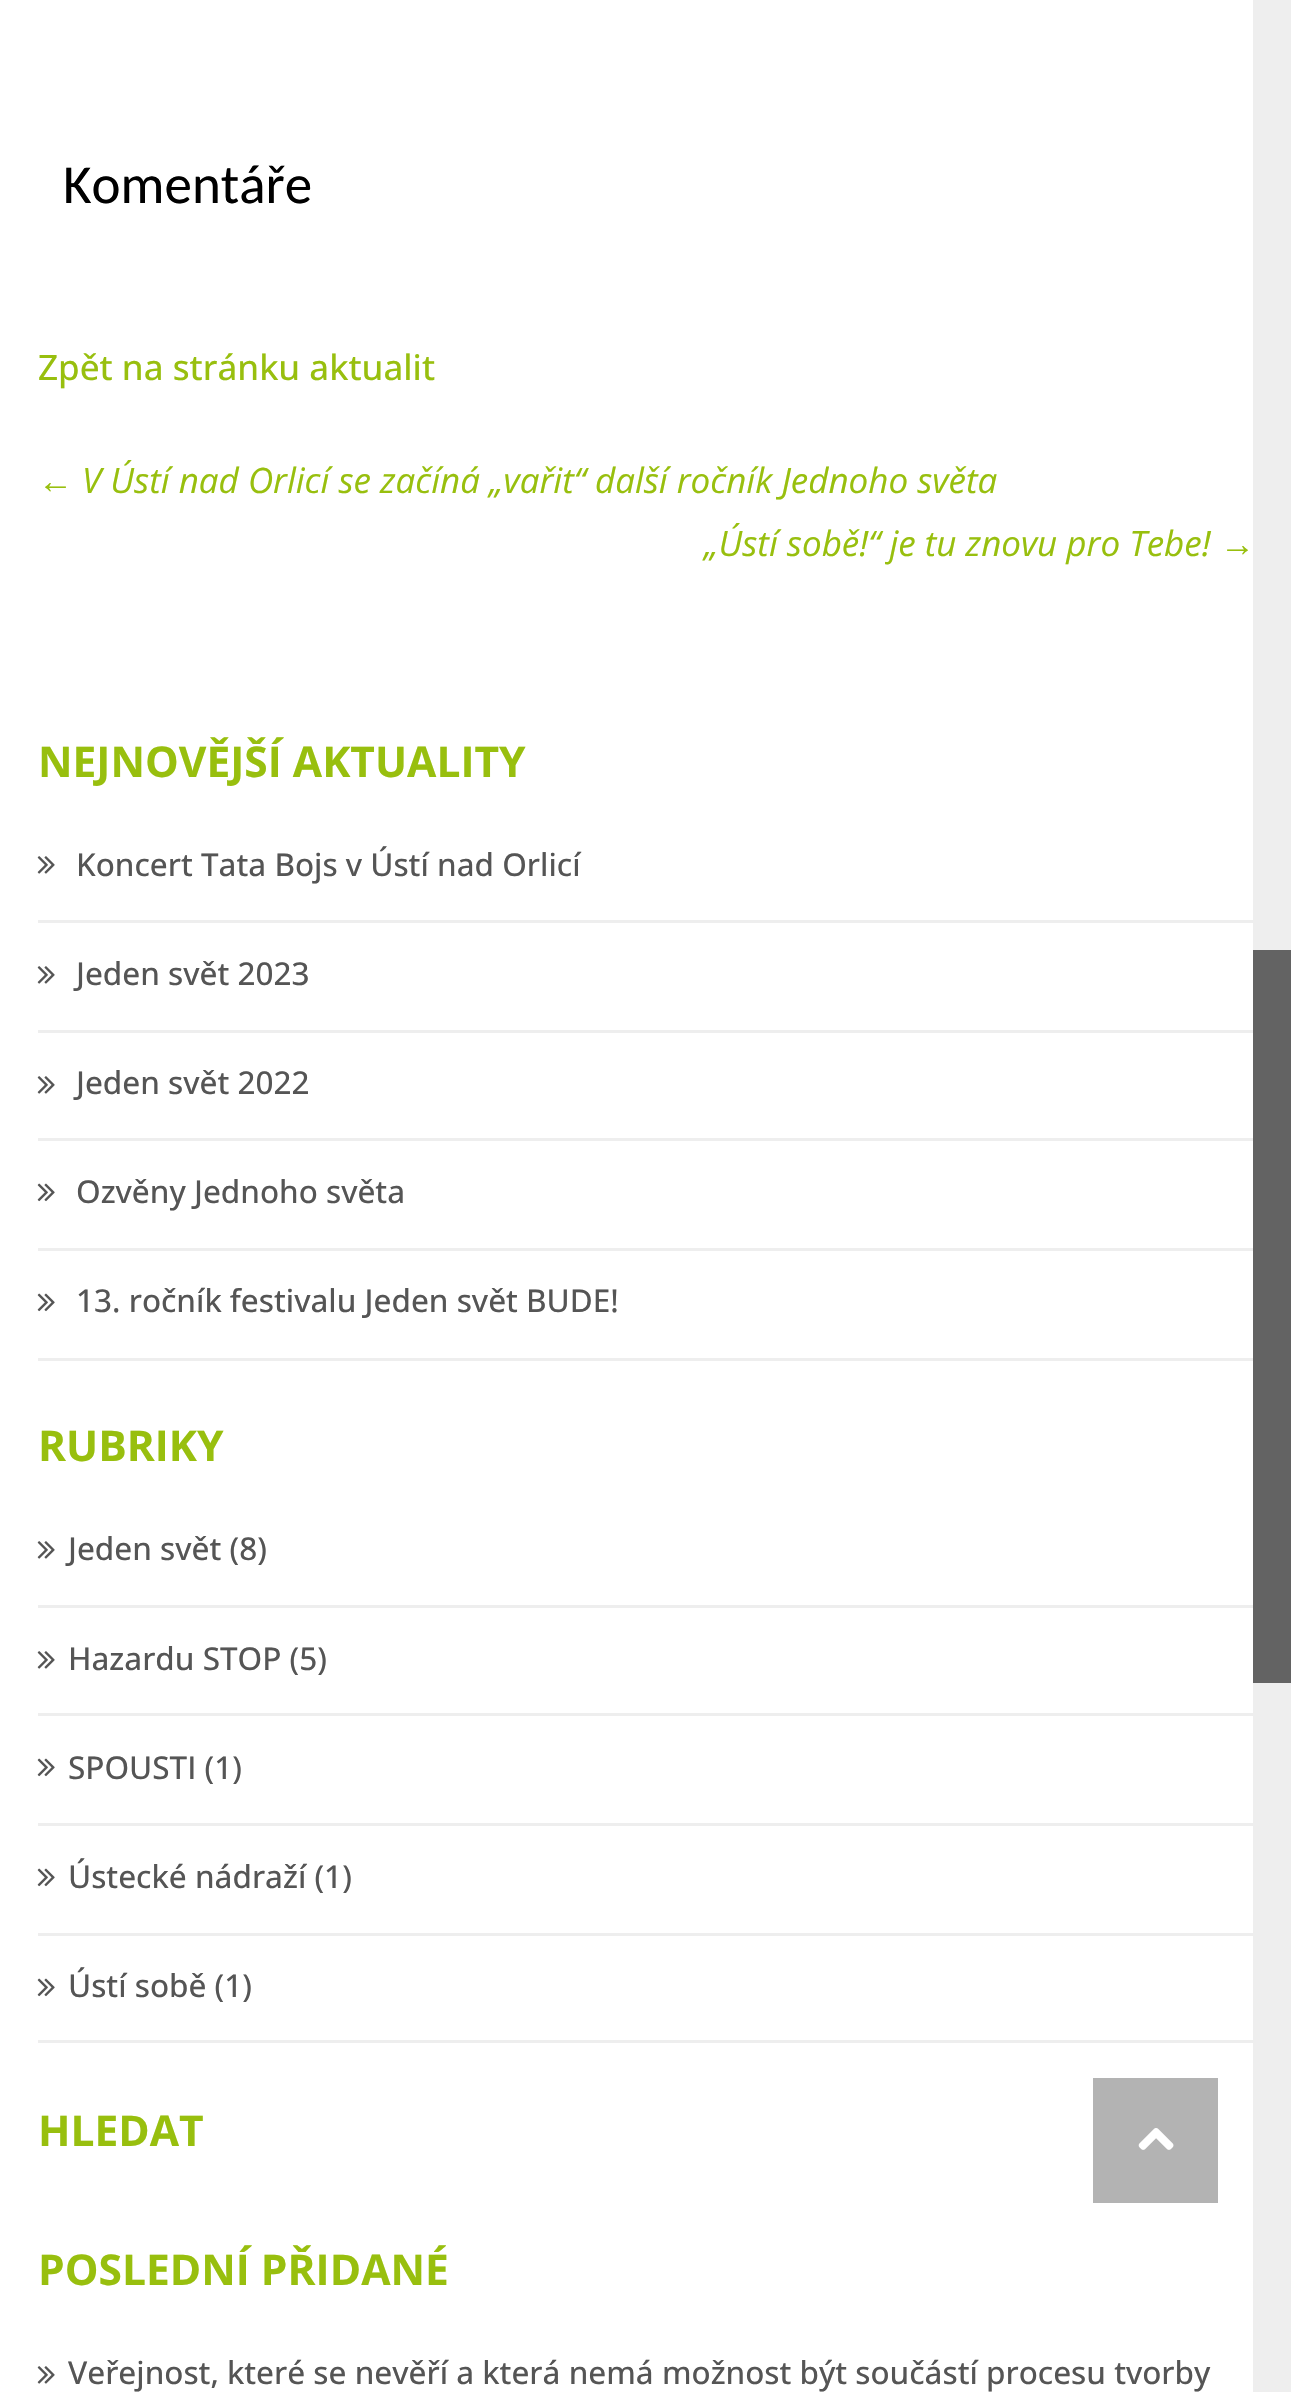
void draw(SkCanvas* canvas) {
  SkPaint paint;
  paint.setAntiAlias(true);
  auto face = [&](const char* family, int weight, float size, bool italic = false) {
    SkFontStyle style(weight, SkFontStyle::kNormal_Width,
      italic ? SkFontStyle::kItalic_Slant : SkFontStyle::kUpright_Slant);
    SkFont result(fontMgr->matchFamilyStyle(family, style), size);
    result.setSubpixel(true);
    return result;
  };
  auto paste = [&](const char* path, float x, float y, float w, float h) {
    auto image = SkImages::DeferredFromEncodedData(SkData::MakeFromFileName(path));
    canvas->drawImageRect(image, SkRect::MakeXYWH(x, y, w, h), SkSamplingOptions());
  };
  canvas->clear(0xffffffff);
  paint.setColor(0xffeeeeee);
  canvas->drawRect(SkRect::MakeXYWH(38, 920, 1217, 3), paint);
  paste("img/1.png", 37, 856, 18, 18);
  canvas->drawRect(SkRect::MakeXYWH(38, 1030, 1217, 3), paint);
  paste("img/1.png", 37, 966, 18, 18);
  canvas->drawRect(SkRect::MakeXYWH(38, 1138, 1217, 3), paint);
  paste("img/1.png", 37, 1076, 18, 18);
  canvas->drawRect(SkRect::MakeXYWH(38, 1248, 1217, 3), paint);
  paste("img/2.png", 37, 1183, 18, 19);
  canvas->drawRect(SkRect::MakeXYWH(38, 1358, 1217, 3), paint);
  paste("img/2.png", 37, 1293, 18, 19);
  canvas->drawRect(SkRect::MakeXYWH(38, 1605, 1217, 3), paint);
  paste("img/1.png", 37, 1541, 18, 18);
  canvas->drawRect(SkRect::MakeXYWH(38, 1713, 1217, 3), paint);
  paste("img/1.png", 37, 1651, 18, 18);
  canvas->drawRect(SkRect::MakeXYWH(38, 1823, 1217, 3), paint);
  paste("img/2.png", 37, 1758, 18, 19);
  canvas->drawRect(SkRect::MakeXYWH(38, 1933, 1217, 3), paint);
  paste("img/2.png", 37, 1868, 18, 19);
  canvas->drawRect(SkRect::MakeXYWH(38, 2040, 1217, 3), paint);
  paste("img/2.png", 37, 1978, 18, 19);
  paste("img/1.png", 37, 2366, 18, 18);
  {
    const struct { float x, y, w, h; SkColor color; } items[] = {
      {1253, 0, 38, 2392, 0xffeeeeee},
      {1253, 950, 38, 733, 0xff636363},
      {1093, 2078, 125, 125, 0xffb3b3b3},
    };
    for (auto [x, y, w, h, color] : items) {
      paint.setColor(color);
      canvas->drawRect(SkRect::MakeXYWH(x, y, w, h), paint);
    }
  }
  paste("img/3.png", 1138, 2128, 36, 22);
  auto f0 = face("Carlito", 400, 55);
  paint.setColor(0xff000000);
  canvas->drawString("Komentáře", 63, 203, f0, paint);
  auto f1 = face("Open Sans", 500, 35);
  paint.setColor(0xff98bf0e);
  canvas->drawString("Zpět na stránku aktualit", 38, 380, f1, paint);
  auto f2 = face("Liberation Sans", 400, 35, true);
  canvas->drawString("←", 38, 493, f2, paint);
  auto f3 = face("Open Sans", 400, 35, true);
  canvas->drawString("V Ústí nad Orlicí se začíná „vařit“ další ročník Jednoho světa", 82, 493, f3, paint);
  canvas->drawString("„Ústí sobě!“ je tu znovu pro Tebe!", 704, 556, f3, paint);
  canvas->drawString("→", 1220, 556, f2, paint);
  auto f4 = face("Open Sans", 700, 42.5f);
  canvas->drawString("NEJNOVĚJŠÍ AKTUALITY", 38, 777, f4, paint);
  auto f5 = face("Open Sans", 500, 31.5f);
  paint.setColor(0xff555555);
  {
    const struct { const char* s; float x, y; } items[] = {
      {"Koncert Tata Bojs v Ústí nad Orlicí", 76, 876},
      {"Jeden svět 2023", 76, 985},
      {"Jeden svět 2022", 76, 1094},
      {"Ozvěny Jednoho světa", 76, 1203},
      {"13. ročník festivalu Jeden svět BUDE!", 76, 1312},
    };
    for (auto [s, x, y] : items) {
      canvas->drawString(s, x, y, f5, paint);
    }
  }
  paint.setColor(0xff98bf0e);
  canvas->drawString("RUBRIKY", 38, 1461, f4, paint);
  paint.setColor(0xff555555);
  {
    const struct { const char* s; float x, y; } items[] = {
      {"Jeden svět (8)", 68, 1560},
      {"Hazardu STOP (5)", 68, 1670},
      {"SPOUSTI (1)", 68, 1779},
      {"Ústecké nádraží (1)", 68, 1888},
      {"Ústí sobě (1)", 68, 1997},
    };
    for (auto [s, x, y] : items) {
      canvas->drawString(s, x, y, f5, paint);
    }
  }
  paint.setColor(0xff98bf0e);
  canvas->drawString("HLEDAT", 38, 2146, f4, paint);
  canvas->drawString("POSLEDNÍ PŘIDANÉ", 38, 2285, f4, paint);
  paint.setColor(0xff555555);
  canvas->drawString("Veřejnost, které se nevěří a která nemá možnost být součástí procesu tvorby", 68, 2384, f5, paint);
}
